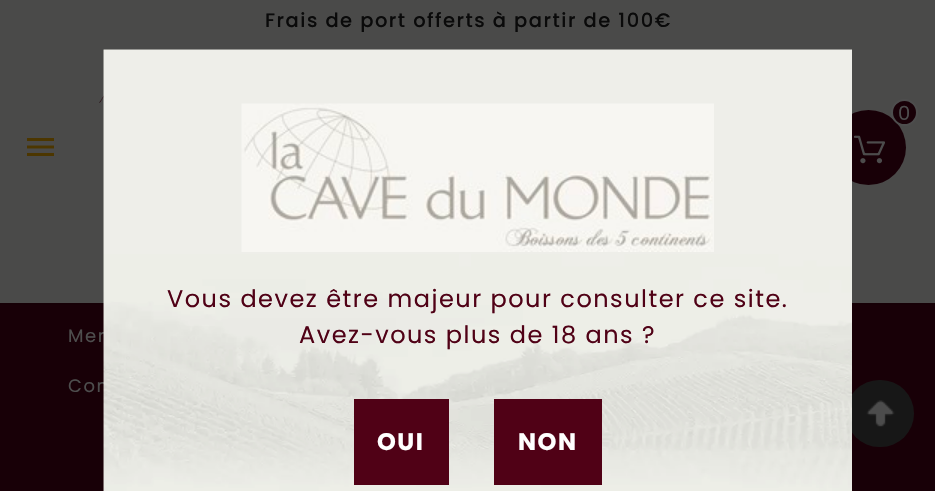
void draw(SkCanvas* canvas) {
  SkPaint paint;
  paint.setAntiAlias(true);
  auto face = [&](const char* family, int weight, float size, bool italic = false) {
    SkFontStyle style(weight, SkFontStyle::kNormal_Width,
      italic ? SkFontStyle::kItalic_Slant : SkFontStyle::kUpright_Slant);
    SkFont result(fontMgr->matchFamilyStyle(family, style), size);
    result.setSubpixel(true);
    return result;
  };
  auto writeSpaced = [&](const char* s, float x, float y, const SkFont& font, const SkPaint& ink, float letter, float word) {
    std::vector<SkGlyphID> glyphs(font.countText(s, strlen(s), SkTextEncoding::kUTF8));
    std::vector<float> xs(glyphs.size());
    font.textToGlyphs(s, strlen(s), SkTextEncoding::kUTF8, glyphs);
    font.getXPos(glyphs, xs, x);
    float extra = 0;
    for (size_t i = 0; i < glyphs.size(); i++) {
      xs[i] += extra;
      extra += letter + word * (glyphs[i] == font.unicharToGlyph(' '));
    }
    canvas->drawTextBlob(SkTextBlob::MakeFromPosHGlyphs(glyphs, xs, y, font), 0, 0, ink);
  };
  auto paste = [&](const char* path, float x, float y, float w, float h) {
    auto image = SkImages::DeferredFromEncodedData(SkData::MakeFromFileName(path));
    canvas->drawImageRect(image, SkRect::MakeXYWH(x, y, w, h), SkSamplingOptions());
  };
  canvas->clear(0xff4a4a49);
  paste("img/1.png", 99, 95, 5, 8);
  paint.setColor(0xff180007);
  canvas->drawCircle(868.5f, 147.5f, 37.5f, paint);
  canvas->drawCircle(904.5f, 112.5f, 12.5f, paint);
  paint.setStroke(true);
  paint.setStrokeWidth(2);
  paint.setColor(0xff4d4d4d);
  canvas->drawCircle(904.5f, 112.5f, 12.5f, paint);
  paste("img/2.png", 854, 135, 31, 29);
  paste("img/3.png", 27, 138, 27, 18);
  paint.setStroke(false);
  paint.setColor(0xff180007);
  canvas->drawRect(SkRect::MakeXYWH(0, 305, 935, 186), paint);
  paint.setColor(0xff160006);
  canvas->drawRect(SkRect::MakeXYWH(0, 303, 935, 2), paint);
  paint.setColor(0xff171717);
  canvas->drawRoundRect(SkRect::MakeXYWH(846, 380, 68, 67), 33.5f, 33.5f, paint);
  paste("img/4.png", 866, 400, 29, 27);
  auto f0 = face("Poppins", 500, 19.5f);
  paint.setColor(0xff0a0a0a);
  writeSpaced("Frais de port offerts à partir de 100€", 265, 27, f0, paint, 1.5f, 0);
  auto f1 = face("Poppins", 400, 19.5f);
  paint.setColor(0xff4d4d4d);
  canvas->drawString("0", 898, 120, f1, paint);
  auto f2 = face("Poppins", 400, 18);
  writeSpaced("Men", 68, 342, f2, paint, 1.5f, 0);
  writeSpaced("Con", 68, 392, f2, paint, 1.5f, 0);
  paste("img/5.png", 103, 49, 749, 442);
  paste("img/6.png", 241, 103, 473, 149);
  auto f3 = face("Poppins", 400, 24);
  paint.setColor(0xff500116);
  writeSpaced("Vous devez être majeur pour consulter ce site.", 167, 307, f3, paint, 1.5f, 0);
  writeSpaced("Avez-vous plus de 18 ans ?", 299, 343, f3, paint, 1.5f, 0);
  canvas->drawRect(SkRect::MakeXYWH(354, 399, 95, 86), paint);
  auto f4 = face("Poppins", 700, 24);
  paint.setColor(0xffffffff);
  writeSpaced("OUI", 377, 450, f4, paint, 1.5f, 0);
  paint.setColor(0xff500116);
  canvas->drawRect(SkRect::MakeXYWH(494, 399, 108, 86), paint);
  paint.setColor(0xffffffff);
  writeSpaced("NON", 518, 450, f4, paint, 1.5f, 0);
}
